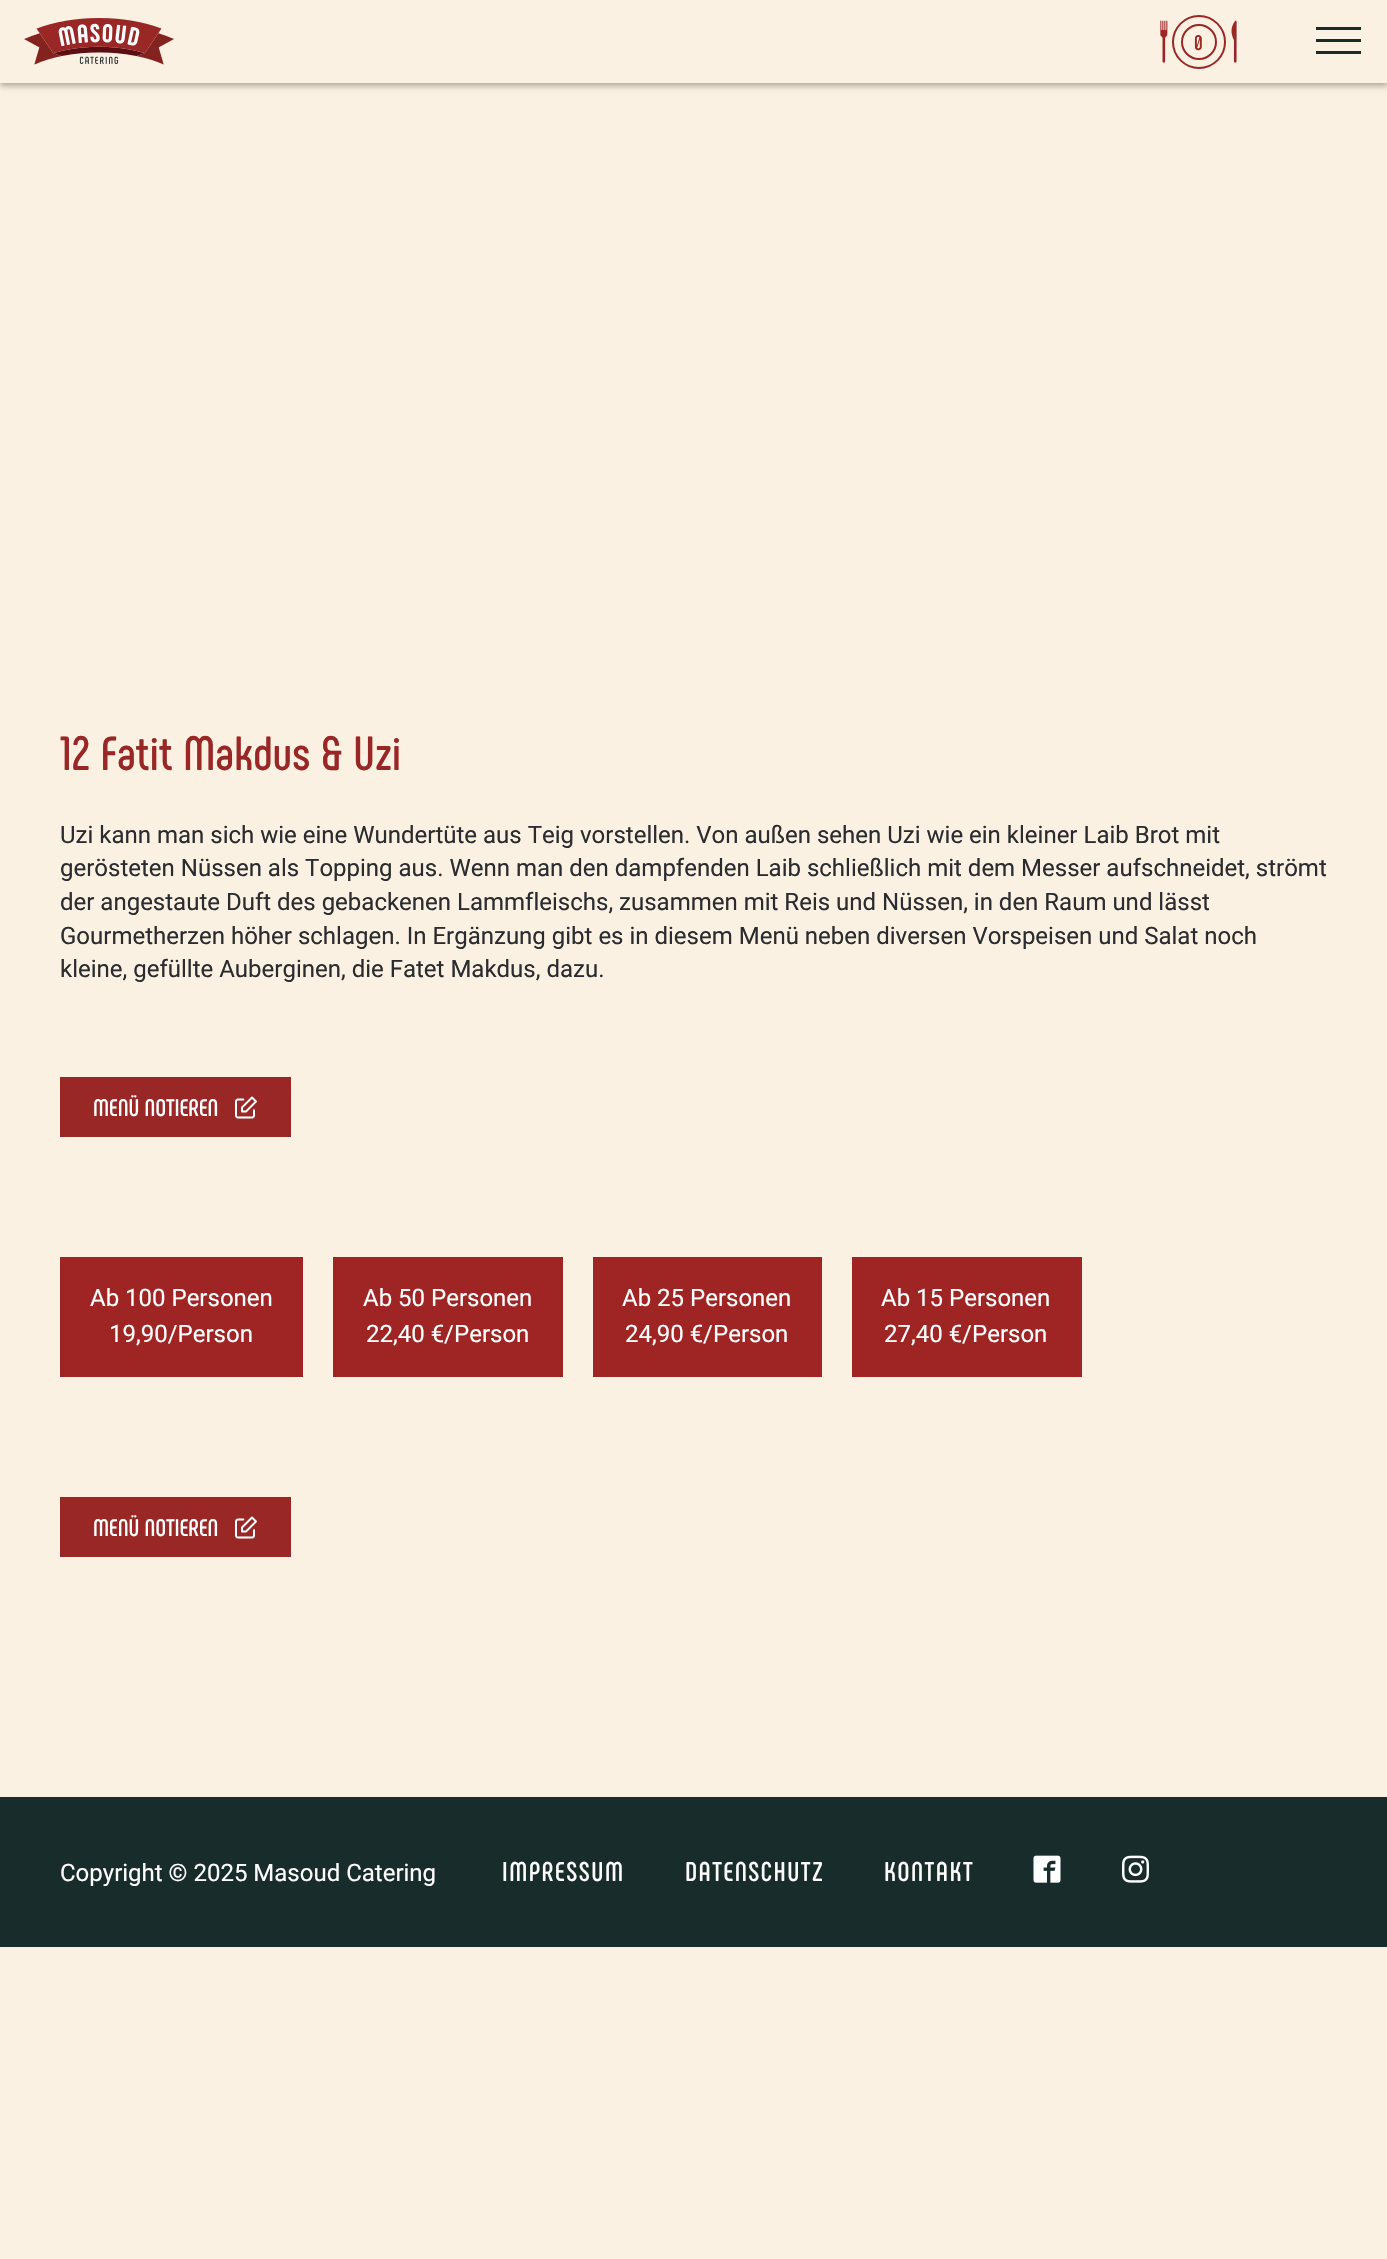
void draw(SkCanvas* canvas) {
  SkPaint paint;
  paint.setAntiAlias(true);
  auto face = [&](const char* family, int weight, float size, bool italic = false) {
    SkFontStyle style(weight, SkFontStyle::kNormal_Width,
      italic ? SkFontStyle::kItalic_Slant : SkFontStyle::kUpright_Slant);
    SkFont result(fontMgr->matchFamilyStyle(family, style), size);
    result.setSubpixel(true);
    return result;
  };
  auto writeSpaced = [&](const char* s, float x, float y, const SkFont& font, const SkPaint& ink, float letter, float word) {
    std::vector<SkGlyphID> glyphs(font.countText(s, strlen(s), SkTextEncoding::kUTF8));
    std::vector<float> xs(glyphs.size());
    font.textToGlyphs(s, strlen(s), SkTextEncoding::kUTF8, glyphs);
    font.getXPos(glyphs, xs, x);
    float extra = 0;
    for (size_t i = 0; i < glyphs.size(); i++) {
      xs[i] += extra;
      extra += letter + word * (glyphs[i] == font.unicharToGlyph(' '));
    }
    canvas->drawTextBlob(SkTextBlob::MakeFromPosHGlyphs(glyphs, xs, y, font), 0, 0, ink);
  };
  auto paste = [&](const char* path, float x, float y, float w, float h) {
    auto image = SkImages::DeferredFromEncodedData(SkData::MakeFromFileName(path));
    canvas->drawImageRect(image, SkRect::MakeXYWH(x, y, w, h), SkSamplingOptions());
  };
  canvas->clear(0xfffbf1e2);
  paint.setColor(0x4d000000);
  paint.setMaskFilter(SkMaskFilter::MakeBlur(kNormal_SkBlurStyle, 3));
  canvas->drawRect(SkRect::MakeXYWH(0, 3, 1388, 83), paint);
  paint.setMaskFilter(nullptr);
  paint.setColor(0xfffbf1e2);
  canvas->drawRect(SkRect::MakeXYWH(0, 0, 1387, 83), paint);
  paste("img/1.png", 24, 18, 150, 47);
  paint.setStroke(true);
  paint.setStrokeWidth(2);
  paint.setColor(0xff982725);
  canvas->drawCircle(1199, 42, 26, paint);
  paste("img/2.png", 1160, 20, 8, 43);
  canvas->drawCircle(1199, 42, 17, paint);
  paste("img/3.png", 1231, 20, 6, 43);
  paint.setStroke(false);
  {
    const struct { float x, y, w, h; SkColor color; } items[] = {
      {1316, 27, 45, 3, 0xff182c2b},
      {1316, 39, 45, 3, 0xff182c2b},
      {1316, 51, 45, 3, 0xff182c2b},
      {60, 1077, 231, 60, 0xff982725},
    };
    for (auto [x, y, w, h, color] : items) {
      paint.setColor(color);
      canvas->drawRect(SkRect::MakeXYWH(x, y, w, h), paint);
    }
  }
  paste("img/4.png", 235, 1096, 22, 23);
  {
    const struct { float x, y, w, h; SkColor color; } items[] = {
      {60, 1257, 243, 120, 0xff9f2524},
      {333, 1257, 230, 120, 0xff9f2524},
      {593, 1257, 229, 120, 0xff9f2524},
      {852, 1257, 230, 120, 0xff9f2524},
      {60, 1497, 231, 60, 0xff982725},
    };
    for (auto [x, y, w, h, color] : items) {
      paint.setColor(color);
      canvas->drawRect(SkRect::MakeXYWH(x, y, w, h), paint);
    }
  }
  paste("img/4.png", 235, 1516, 22, 23);
  paint.setColor(0xff182c2b);
  canvas->drawRect(SkRect::MakeXYWH(0, 1797, 1387, 150), paint);
  paste("img/5.png", 1033, 1855, 28, 28);
  paste("img/6.png", 1122, 1855, 27, 28);
  auto f0 = face("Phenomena", 700, 21);
  paint.setColor(0xff982725);
  canvas->drawString("0", 1194, 50, f0, paint);
  auto f1 = face("Phenomena", 700, 48);
  canvas->drawString("12 Fatit Makdus & Uzi", 60, 770, f1, paint);
  auto f2 = face("Roboto", 400, 24);
  paint.setColor(0xff2b2c30);
  {
    const struct { const char* s; float x, y; } items[] = {
      {"Uzi kann man sich wie eine Wundertüte aus Teig vorstellen. Von außen sehen Uzi wie ein kleiner Laib Brot mit", 60, 843},
      {"gerösteten Nüssen als Topping aus. Wenn man den dampfenden Laib schließlich mit dem Messer aufschneidet, strömt", 60, 876},
      {"der angestaute Duft des gebackenen Lammfleischs, zusammen mit Reis und Nüssen, in den Raum und lässt", 60, 910},
      {"Gourmetherzen höher schlagen. In Ergänzung gibt es in diesem Menü neben diversen Vorspeisen und Salat noch", 60, 944},
      {"kleine, gefüllte Auberginen, die Fatet Makdus, dazu.", 60, 977},
    };
    for (auto [s, x, y] : items) {
      canvas->drawString(s, x, y, f2, paint);
    }
  }
  auto f3 = face("Phenomena", 700, 24);
  paint.setColor(0xffffffff);
  canvas->drawString("MENÜ NOTIEREN", 93, 1116, f3, paint);
  {
    const struct { const char* s; float x, y; } items[] = {
      {"Ab 100 Personen", 90, 1306},
      {"19,90/Person", 109, 1342},
      {"Ab 50 Personen", 363, 1306},
      {"22,40 €/Person", 366, 1342},
      {"Ab 25 Personen", 622, 1306},
      {"24,90 €/Person", 625, 1342},
      {"Ab 15 Personen", 881, 1306},
      {"27,40 €/Person", 884, 1342},
    };
    for (auto [s, x, y] : items) {
      canvas->drawString(s, x, y, f2, paint);
    }
  }
  canvas->drawString("MENÜ NOTIEREN", 93, 1536, f3, paint);
  canvas->drawString("Copyright © 2025 Masoud Catering", 60, 1881, f2, paint);
  auto f4 = face("Phenomena", 700, 27);
  {
    const struct { const char* s; float x, y; } items[] = {
      {"IMPRESSUM", 502, 1881},
      {"DATENSCHUTZ", 685, 1881},
      {"KONTAKT", 884, 1881},
    };
    for (auto [s, x, y] : items) {
      writeSpaced(s, x, y, f4, paint, 1.5f, 0);
    }
  }
}
